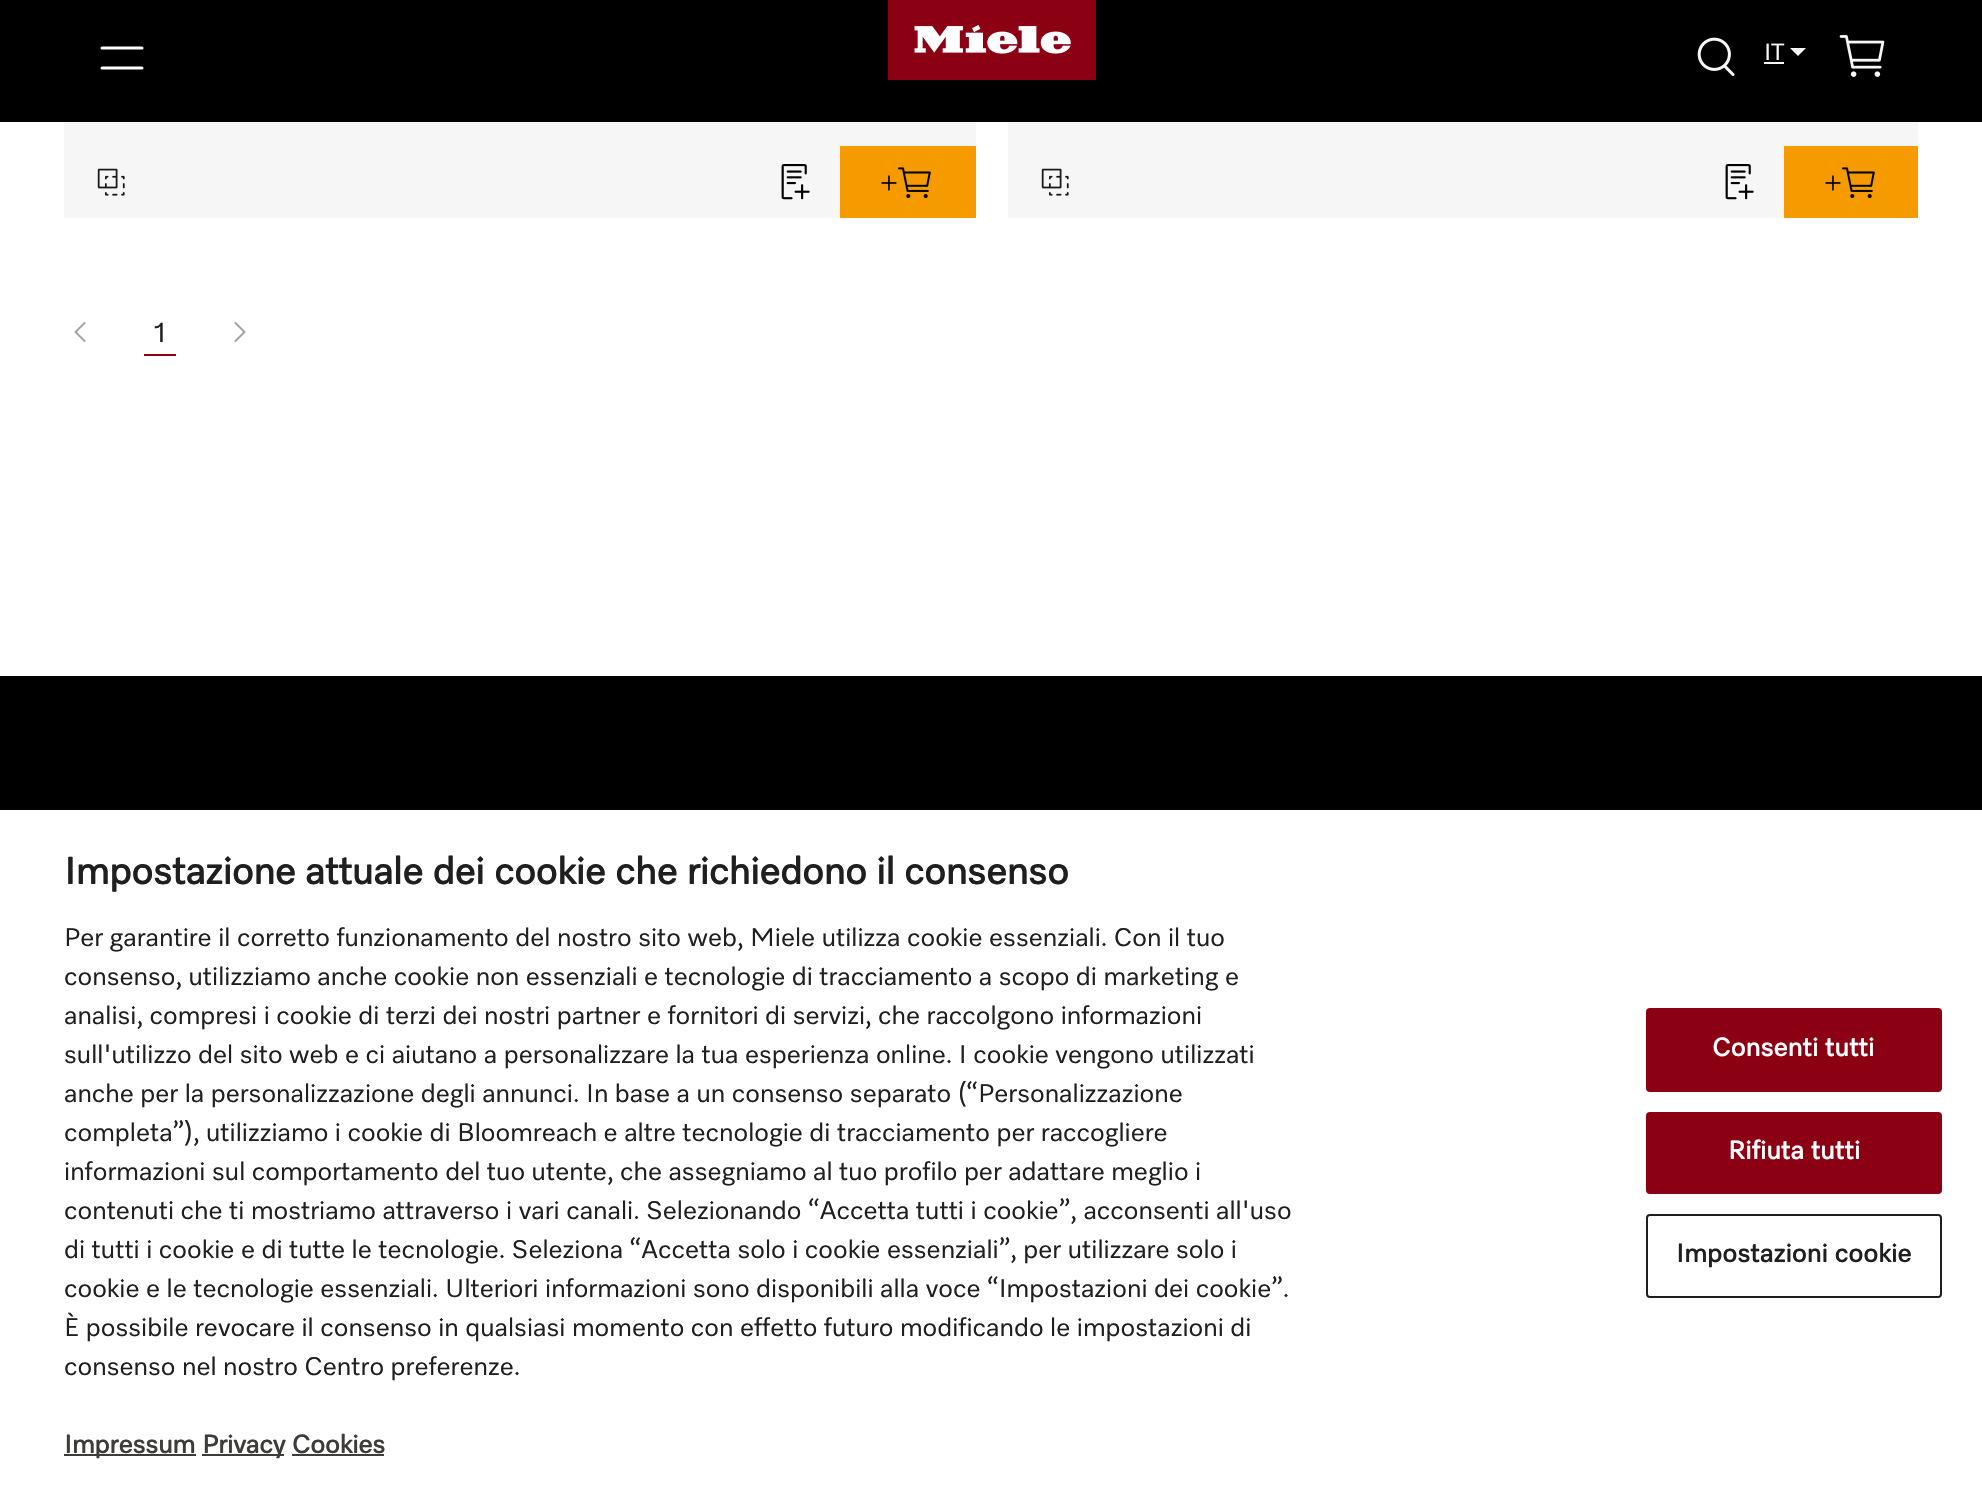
void draw(SkCanvas* canvas) {
  SkPaint paint;
  paint.setAntiAlias(true);
  auto face = [&](const char* family, int weight, float size, bool italic = false) {
    SkFontStyle style(weight, SkFontStyle::kNormal_Width,
      italic ? SkFontStyle::kItalic_Slant : SkFontStyle::kUpright_Slant);
    SkFont result(fontMgr->matchFamilyStyle(family, style), size);
    result.setSubpixel(true);
    return result;
  };
  auto writeSpaced = [&](const char* s, float x, float y, const SkFont& font, const SkPaint& ink, float letter, float word) {
    std::vector<SkGlyphID> glyphs(font.countText(s, strlen(s), SkTextEncoding::kUTF8));
    std::vector<float> xs(glyphs.size());
    font.textToGlyphs(s, strlen(s), SkTextEncoding::kUTF8, glyphs);
    font.getXPos(glyphs, xs, x);
    float extra = 0;
    for (size_t i = 0; i < glyphs.size(); i++) {
      xs[i] += extra;
      extra += letter + word * (glyphs[i] == font.unicharToGlyph(' '));
    }
    canvas->drawTextBlob(SkTextBlob::MakeFromPosHGlyphs(glyphs, xs, y, font), 0, 0, ink);
  };
  auto paste = [&](const char* path, float x, float y, float w, float h) {
    auto image = SkImages::DeferredFromEncodedData(SkData::MakeFromFileName(path));
    canvas->drawImageRect(image, SkRect::MakeXYWH(x, y, w, h), SkSamplingOptions());
  };
  auto shape = [&](const char* data, bool evenOdd = false) {
    SkPath result = *SkParsePath::FromSVGString(data);
    if (evenOdd) result.setFillType(SkPathFillType::kEvenOdd);
    return result;
  };
  canvas->clear(0xff000000);
  paint.setStroke(true);
  paint.setStrokeWidth(3);
  paint.setStrokeCap(SkPaint::kRound_Cap);
  paint.setColor(0xffffffff);
  canvas->drawPath(shape("M102 48H142M102 68H142"), paint);
  paste("img/1.png", 888, 0, 208, 80);
  paste("img/2.png", 1697, 37, 38, 39);
  paint.setStroke(false);
  paint.setColor(0xfff7f7f7);
  canvas->drawRect(SkRect::MakeXYWH(1764, 62, 20, 2), paint);
  canvas->drawPath(shape("M1790 48H1806L1798 56Z"), paint);
  paste("img/3.png", 1839, 35, 46, 42);
  paint.setColor(0xffffffff);
  canvas->drawRect(SkRect::MakeXYWH(0, 122, 1982, 554), paint);
  paint.setColor(0xfff6f6f6);
  canvas->drawRect(SkRect::MakeXYWH(64, 122, 912, 96), paint);
  paste("img/4.png", 97, 168, 28, 28);
  paste("img/5.png", 781, 164, 29, 36);
  paint.setColor(0xfff59b00);
  canvas->drawRect(SkRect::MakeXYWH(840, 146, 136, 72), paint);
  paste("img/6.png", 881, 175, 16, 16);
  paste("img/7.png", 898, 167, 33, 32);
  paint.setColor(0xfff6f6f6);
  canvas->drawRect(SkRect::MakeXYWH(1008, 122, 910, 96), paint);
  paste("img/4.png", 1041, 168, 28, 28);
  paste("img/5.png", 1725, 164, 29, 36);
  paint.setColor(0xfff59b00);
  canvas->drawRect(SkRect::MakeXYWH(1784, 146, 134, 72), paint);
  paste("img/6.png", 1825, 175, 16, 16);
  paste("img/7.png", 1842, 167, 33, 32);
  paste("img/8.png", 74, 322, 12, 20);
  paint.setColor(0xff8c0014);
  canvas->drawRect(SkRect::MakeXYWH(144, 354, 32, 2), paint);
  paste("img/9.png", 234, 322, 12, 20);
  {
    const struct { float x, y, w, h; SkColor color; } items[] = {
      {0, 810, 1982, 676, 0xffffffff},
      {64, 1454, 132, 2, 0xff3e3c39},
      {202, 1454, 82, 2, 0xff3e3c39},
      {292, 1454, 92, 2, 0xff3e3c39},
    };
    for (auto [x, y, w, h, color] : items) {
      paint.setColor(color);
      canvas->drawRect(SkRect::MakeXYWH(x, y, w, h), paint);
    }
  }
  paint.setColor(0xff8c0014);
  canvas->drawRoundRect(SkRect::MakeXYWH(1647, 1009, 294, 82), 3, 3, paint);
  paint.setStroke(true);
  paint.setStrokeWidth(2);
  paint.setStrokeCap(SkPaint::kButt_Cap);
  canvas->drawRoundRect(SkRect::MakeXYWH(1647, 1009, 294, 82), 3, 3, paint);
  paint.setStroke(false);
  canvas->drawRoundRect(SkRect::MakeXYWH(1647, 1113, 294, 80), 3, 3, paint);
  paint.setStroke(true);
  canvas->drawRoundRect(SkRect::MakeXYWH(1647, 1113, 294, 80), 3, 3, paint);
  paint.setColor(0xff1e1e1e);
  canvas->drawRoundRect(SkRect::MakeXYWH(1647, 1215, 294, 82), 3, 3, paint);
  auto f0 = face("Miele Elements", 400, 24);
  paint.setStroke(false);
  paint.setColor(0xfff7f7f7);
  canvas->drawString("IT", 1764, 60, f0, paint);
  auto f1 = face("Miele Elements", 400, 28);
  paint.setColor(0xff1f1f1f);
  canvas->drawString("1", 154, 342, f1, paint);
  auto f2 = face("Miele Elements", 700, 38.4f);
  canvas->drawString("Impostazione attuale dei cookie che richiedono il consenso", 64, 884, f2, paint);
  auto f3 = face("Miele Elements", 400, 26);
  {
    const struct { const char* s; float x, y; } items[] = {
      {"Per garantire il corretto funzionamento del nostro sito web, Miele utilizza cookie essenziali. Con il tuo", 64, 946},
      {"consenso, utilizziamo anche cookie non essenziali e tecnologie di tracciamento a scopo di marketing e", 64, 985},
      {"analisi, compresi i cookie di terzi dei nostri partner e fornitori di servizi, che raccolgono informazioni", 64, 1024},
      {"sull'utilizzo del sito web e ci aiutano a personalizzare la tua esperienza online. I cookie vengono utilizzati", 64, 1063},
      {"anche per la personalizzazione degli annunci. In base a un consenso separato (“Personalizzazione", 64, 1102},
      {"completa”), utilizziamo i cookie di Bloomreach e altre tecnologie di tracciamento per raccogliere", 64, 1141},
      {"informazioni sul comportamento del tuo utente, che assegniamo al tuo profilo per adattare meglio i", 64, 1180},
      {"contenuti che ti mostriamo attraverso i vari canali. Selezionando “Accetta tutti i cookie”, acconsenti all'uso", 64, 1219},
      {"di tutti i cookie e di tutte le tecnologie. Seleziona “Accetta solo i cookie essenziali”, per utilizzare solo i", 64, 1258},
      {"cookie e le tecnologie essenziali. Ulteriori informazioni sono disponibili alla voce “Impostazioni dei cookie”.", 64, 1297},
      {"È possibile revocare il consenso in qualsiasi momento con effetto futuro modificando le impostazioni di", 64, 1336},
      {"consenso nel nostro Centro preferenze.", 64, 1375},
    };
    for (auto [s, x, y] : items) {
      canvas->drawString(s, x, y, f3, paint);
    }
  }
  auto f4 = face("Miele Elements", 700, 26);
  paint.setColor(0xff3e3c39);
  canvas->drawString("Impressum", 64, 1453, f4, paint);
  canvas->drawString("Privacy Cookies", 202, 1453, f4, paint);
  paint.setColor(0xffffffff);
  writeSpaced("Consenti tutti", 1712, 1056, f4, paint, 0.25f, 0);
  writeSpaced("Rifiuta tutti", 1728, 1159, f4, paint, 0.25f, 0);
  paint.setColor(0xff1f1f1f);
  writeSpaced("Impostazioni cookie", 1676, 1262, f4, paint, 0.25f, 0);
}
